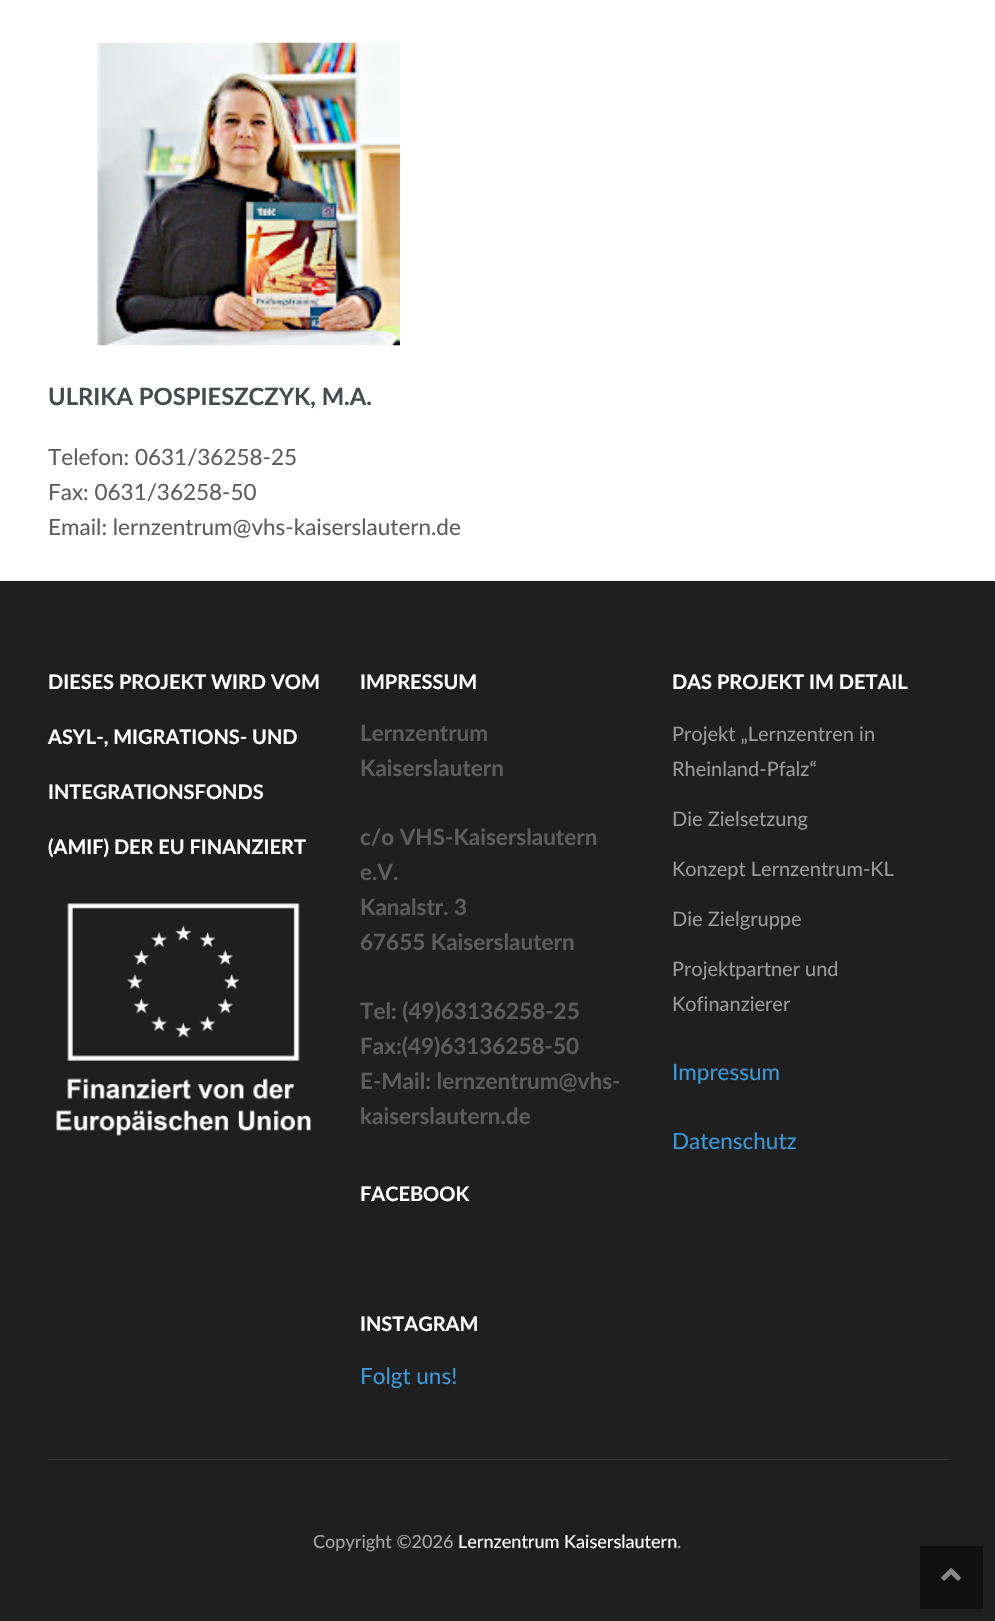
void draw(SkCanvas* canvas) {
  SkPaint paint;
  paint.setAntiAlias(true);
  auto face = [&](const char* family, int weight, float size, bool italic = false) {
    SkFontStyle style(weight, SkFontStyle::kNormal_Width,
      italic ? SkFontStyle::kItalic_Slant : SkFontStyle::kUpright_Slant);
    SkFont result(fontMgr->matchFamilyStyle(family, style), size);
    result.setSubpixel(true);
    return result;
  };
  auto paste = [&](const char* path, float x, float y, float w, float h) {
    auto image = SkImages::DeferredFromEncodedData(SkData::MakeFromFileName(path));
    canvas->drawImageRect(image, SkRect::MakeXYWH(x, y, w, h), SkSamplingOptions());
  };
  canvas->clear(0xffffffff);
  paste("img/1.png", 97, 42, 303, 304);
  paint.setColor(0xff1f1f1f);
  canvas->drawRect(SkRect::MakeXYWH(0, 581, 995, 1040), paint);
  paint.setColor(0xff3a3a3a);
  canvas->drawRect(SkRect::MakeXYWH(48, 1459, 900, 1), paint);
  paste("img/2.png", 56, 903, 255, 233);
  paint.setColor(0xff101010);
  canvas->drawRect(SkRect::MakeXYWH(920, 1546, 63, 63), paint);
  paste("img/3.png", 941, 1568, 20, 13);
  auto f0 = face("Lato", 700, 23.75f);
  paint.setColor(0xff474b4e);
  canvas->drawString("ULRIKA POSPIESZCZYK, M.A.", 48, 405, f0, paint);
  auto f1 = face("Lato", 400, 22.5f);
  paint.setColor(0xff5d5d5d);
  {
    const struct { const char* s; float x, y; } items[] = {
      {"Telefon: 0631/36258-25", 48, 465},
      {"Fax: 0631/36258-50", 48, 500},
      {"Email: lernzentrum@vhs-kaiserslautern.de", 48, 535},
    };
    for (auto [s, x, y] : items) {
      canvas->drawString(s, x, y, f1, paint);
    }
  }
  auto f2 = face("Lato", 700, 20);
  paint.setColor(0xffffffff);
  {
    const struct { const char* s; float x, y; } items[] = {
      {"DIESES PROJEKT WIRD VOM", 48, 689},
      {"ASYL-, MIGRATIONS- UND", 48, 744},
      {"INTEGRATIONSFONDS", 48, 799},
      {"(AMIF) DER EU FINANZIERT", 48, 854},
      {"IMPRESSUM", 360, 689},
    };
    for (auto [s, x, y] : items) {
      canvas->drawString(s, x, y, f2, paint);
    }
  }
  auto f3 = face("Lato", 700, 22.5f);
  paint.setColor(0xff5d5d5d);
  {
    const struct { const char* s; float x, y; } items[] = {
      {"Lernzentrum", 360, 741},
      {"Kaiserslautern", 360, 776},
      {"c/o VHS-Kaiserslautern", 360, 845},
      {"e.V.", 360, 880},
      {"Kanalstr. 3", 360, 915},
      {"67655 Kaiserslautern", 360, 950},
      {"Tel: (49)63136258-25", 360, 1019},
      {"Fax:(49)63136258-50", 360, 1054},
      {"E-Mail: lernzentrum@vhs-", 360, 1089},
      {"kaiserslautern.de", 360, 1124},
    };
    for (auto [s, x, y] : items) {
      canvas->drawString(s, x, y, f3, paint);
    }
  }
  paint.setColor(0xffffffff);
  canvas->drawString("FACEBOOK", 360, 1201, f2, paint);
  canvas->drawString("INSTAGRAM", 360, 1331, f2, paint);
  paint.setColor(0xff3b9ad7);
  canvas->drawString("Folgt uns!", 360, 1384, f1, paint);
  paint.setColor(0xffffffff);
  canvas->drawString("DAS PROJEKT IM DETAIL", 672, 689, f2, paint);
  auto f4 = face("Lato", 400, 20);
  paint.setColor(0xff9a9a9a);
  {
    const struct { const char* s; float x, y; } items[] = {
      {"Projekt „Lernzentren in", 672, 741},
      {"Rheinland-Pfalz“", 672, 776},
      {"Die Zielsetzung", 672, 826},
      {"Konzept Lernzentrum-KL", 672, 876},
      {"Die Zielgruppe", 672, 926},
      {"Projektpartner und", 672, 976},
      {"Kofinanzierer", 672, 1011},
    };
    for (auto [s, x, y] : items) {
      canvas->drawString(s, x, y, f4, paint);
    }
  }
  paint.setColor(0xff3b9ad7);
  canvas->drawString("Impressum", 672, 1080, f1, paint);
  canvas->drawString("Datenschutz", 672, 1149, f1, paint);
  auto f5 = face("Lato", 400, 18.1f);
  paint.setColor(0xffa6a6a6);
  canvas->drawString("Copyright ©2026", 313, 1548, f5, paint);
  paint.setColor(0xffffffff);
  canvas->drawString("Lernzentrum Kaiserslautern", 458, 1548, f5, paint);
  paint.setColor(0xffa6a6a6);
  canvas->drawString(".", 677, 1548, f5, paint);
}
